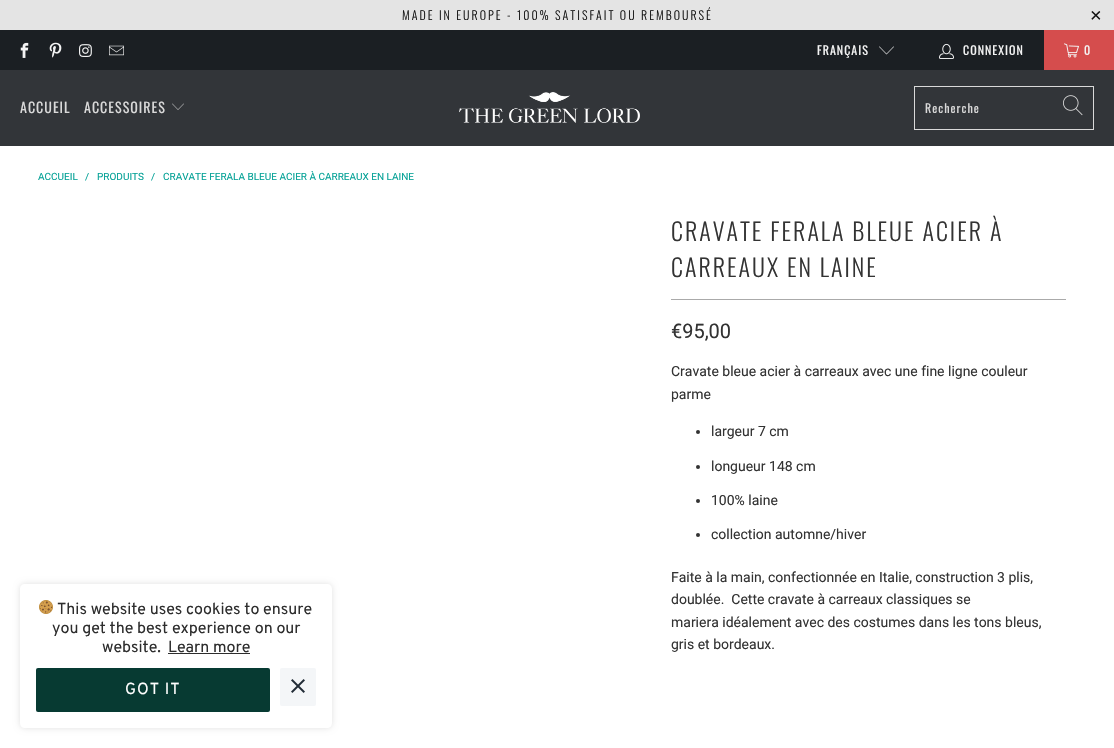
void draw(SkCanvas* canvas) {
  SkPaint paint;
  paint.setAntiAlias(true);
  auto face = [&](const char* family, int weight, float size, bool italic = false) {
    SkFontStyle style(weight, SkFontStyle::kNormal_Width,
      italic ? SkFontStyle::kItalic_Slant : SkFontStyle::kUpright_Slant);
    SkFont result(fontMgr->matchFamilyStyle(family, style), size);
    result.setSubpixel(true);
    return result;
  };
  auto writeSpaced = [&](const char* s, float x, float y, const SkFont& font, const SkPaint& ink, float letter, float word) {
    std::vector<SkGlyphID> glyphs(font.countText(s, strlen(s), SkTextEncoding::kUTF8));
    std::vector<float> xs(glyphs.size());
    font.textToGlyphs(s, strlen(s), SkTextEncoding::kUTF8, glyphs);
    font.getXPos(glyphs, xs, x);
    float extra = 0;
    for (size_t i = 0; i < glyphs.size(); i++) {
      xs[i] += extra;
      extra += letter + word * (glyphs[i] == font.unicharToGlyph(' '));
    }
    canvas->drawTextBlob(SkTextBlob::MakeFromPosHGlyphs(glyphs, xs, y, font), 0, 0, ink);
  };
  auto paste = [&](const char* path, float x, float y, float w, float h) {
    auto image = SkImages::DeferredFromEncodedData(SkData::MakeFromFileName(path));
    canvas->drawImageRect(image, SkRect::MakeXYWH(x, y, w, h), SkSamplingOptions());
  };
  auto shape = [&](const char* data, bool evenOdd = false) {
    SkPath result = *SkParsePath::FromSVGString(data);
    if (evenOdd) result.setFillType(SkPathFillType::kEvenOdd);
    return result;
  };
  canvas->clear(0xffffffff);
  paint.setColor(0xffe4e4e4);
  canvas->drawRect(SkRect::MakeXYWH(0, 0, 1114, 30), paint);
  paint.setColor(0xff1b1f23);
  canvas->drawRect(SkRect::MakeXYWH(0, 30, 1044, 40), paint);
  paste("img/1.png", 20, 42, 9, 16);
  paste("img/2.png", 49, 42, 13, 16);
  paste("img/3.png", 79, 44, 13, 13);
  paste("img/4.png", 109, 45, 15, 11);
  paste("img/5.png", 879, 46, 15, 9);
  paste("img/6.png", 939, 43, 15, 16);
  paint.setColor(0xffd54d4d);
  canvas->drawRect(SkRect::MakeXYWH(1044, 30, 70, 40), paint);
  paste("img/7.png", 1064, 43, 15, 15);
  paint.setColor(0xff323539);
  canvas->drawRect(SkRect::MakeXYWH(0, 70, 1114, 76), paint);
  paste("img/8.png", 172, 103, 12, 7);
  paste("img/9.png", 459, 92, 181, 31);
  paint.setStroke(true);
  paint.setStrokeWidth(1);
  paint.setColor(0xffd9d9d9);
  canvas->drawRect(SkRect::MakeXYWH(914.5f, 86.5f, 179, 43), paint);
  paste("img/10.png", 1063, 95, 20, 21);
  paint.setStroke(false);
  paint.setColor(0xffaaaaaa);
  canvas->drawRect(SkRect::MakeXYWH(671, 299, 395, 1), paint);
  paint.setColor(0xff333333);
  canvas->drawCircle(698, 432, 2, paint);
  canvas->drawCircle(698, 467, 2, paint);
  canvas->drawCircle(698, 501, 2, paint);
  canvas->drawCircle(698, 535, 2, paint);
  canvas->save();
  canvas->clipPath(shape("M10 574H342V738H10ZM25 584H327C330 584 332 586 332 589V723C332 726 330 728 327 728H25C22 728 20 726 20 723V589C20 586 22 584 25 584Z", true), true);
  paint.setColor(0x1f000000);
  paint.setMaskFilter(SkMaskFilter::MakeBlur(kNormal_SkBlurStyle, 3));
  canvas->drawRoundRect(SkRect::MakeXYWH(20, 584, 312, 144), 5, 5, paint);
  paint.setMaskFilter(nullptr);
  canvas->restore();
  paste("img/11.png", 39, 600, 14, 14);
  paint.setColor(0xff2d2d2d);
  canvas->drawRect(SkRect::MakeXYWH(168, 653, 82, 1), paint);
  paint.setColor(0xff073a32);
  canvas->drawRoundRect(SkRect::MakeXYWH(36, 668, 234, 44), 2, 2, paint);
  paint.setColor(0xfff4f6f8);
  canvas->drawRoundRect(SkRect::MakeXYWH(280, 668, 36, 38), 2, 2, paint);
  paste("img/12.png", 291, 679, 14, 14);
  auto f0 = face("Oswald", 300, 12);
  paint.setColor(0xff151515);
  writeSpaced("MADE IN EUROPE - 100% SATISFAIT OU REMBOURSÉ", 402, 20, f0, paint, 2, 0);
  auto f1 = face("Liberation Sans", 400, 20);
  writeSpaced("×", 1090, 22, f1, paint, 2, 0);
  auto f2 = face("Oswald", 400, 12);
  paint.setColor(0xfff4f4f4);
  {
    const struct { const char* s; float x, y; } items[] = {
      {"FRANÇAIS", 817, 55},
      {"CONNEXION", 963, 55},
      {"0", 1084, 55},
    };
    for (auto [s, x, y] : items) {
      writeSpaced(s, x, y, f2, paint, 1, 0);
    }
  }
  auto f3 = face("Oswald", 400, 14);
  paint.setColor(0xffd9d9d9);
  writeSpaced("ACCUEIL", 20, 113, f3, paint, 1, 0);
  writeSpaced("ACCESSOIRES", 84, 113, f3, paint, 1, 0);
  writeSpaced("Recherche", 925, 113, f2, paint, 1, 0);
  auto f4 = face("Roboto", 400, 10);
  paint.setColor(0xff03a196);
  {
    const struct { const char* s; float x, y; } items[] = {
      {"ACCUEIL", 38, 180},
      {"/", 85, 180},
      {"PRODUITS", 97, 180},
      {"/", 151, 180},
      {"CRAVATE FERALA BLEUE ACIER À CARREAUX EN LAINE", 163, 180},
    };
    for (auto [s, x, y] : items) {
      canvas->drawString(s, x, y, f4, paint);
    }
  }
  auto f5 = face("Oswald", 300, 24);
  paint.setColor(0xff333333);
  writeSpaced("CRAVATE FERALA BLEUE ACIER À", 671, 241, f5, paint, 2, 0);
  writeSpaced("CARREAUX EN LAINE", 671, 277, f5, paint, 2, 0);
  auto f6 = face("Roboto", 400, 20);
  canvas->drawString("€95,00", 671, 338, f6, paint);
  auto f7 = face("Roboto", 400, 14);
  {
    const struct { const char* s; float x, y; } items[] = {
      {"Cravate bleue acier à carreaux avec une fine ligne couleur", 671, 376},
      {"parme", 671, 399},
      {"largeur 7 cm", 711, 436},
      {"longueur 148 cm", 711, 471},
      {"100% laine", 711, 505},
      {"collection automne/hiver", 711, 539},
      {"Faite à la main, confectionnée en Italie, construction 3 plis,", 671, 582},
      {"doublée.  Cette cravate à carreaux classiques se", 671, 604},
      {"mariera idéalement avec des costumes dans les tons bleus,", 671, 627},
      {"gris et bordeaux.", 671, 649},
    };
    for (auto [s, x, y] : items) {
      canvas->drawString(s, x, y, f7, paint);
    }
  }
  auto f8 = face("Overpass", 400, 16);
  paint.setColor(0xff2d2d2d);
  {
    const struct { const char* s; float x, y; } items[] = {
      {"This website uses cookies to ensure", 57, 614},
      {"you get the best experience on our", 52, 633},
      {"website.", 102, 652},
      {"Learn more", 168, 652},
    };
    for (auto [s, x, y] : items) {
      canvas->drawString(s, x, y, f8, paint);
    }
  }
  paint.setColor(0xffffffff);
  writeSpaced("GOT IT", 125, 694, f8, paint, 1, 0);
}
